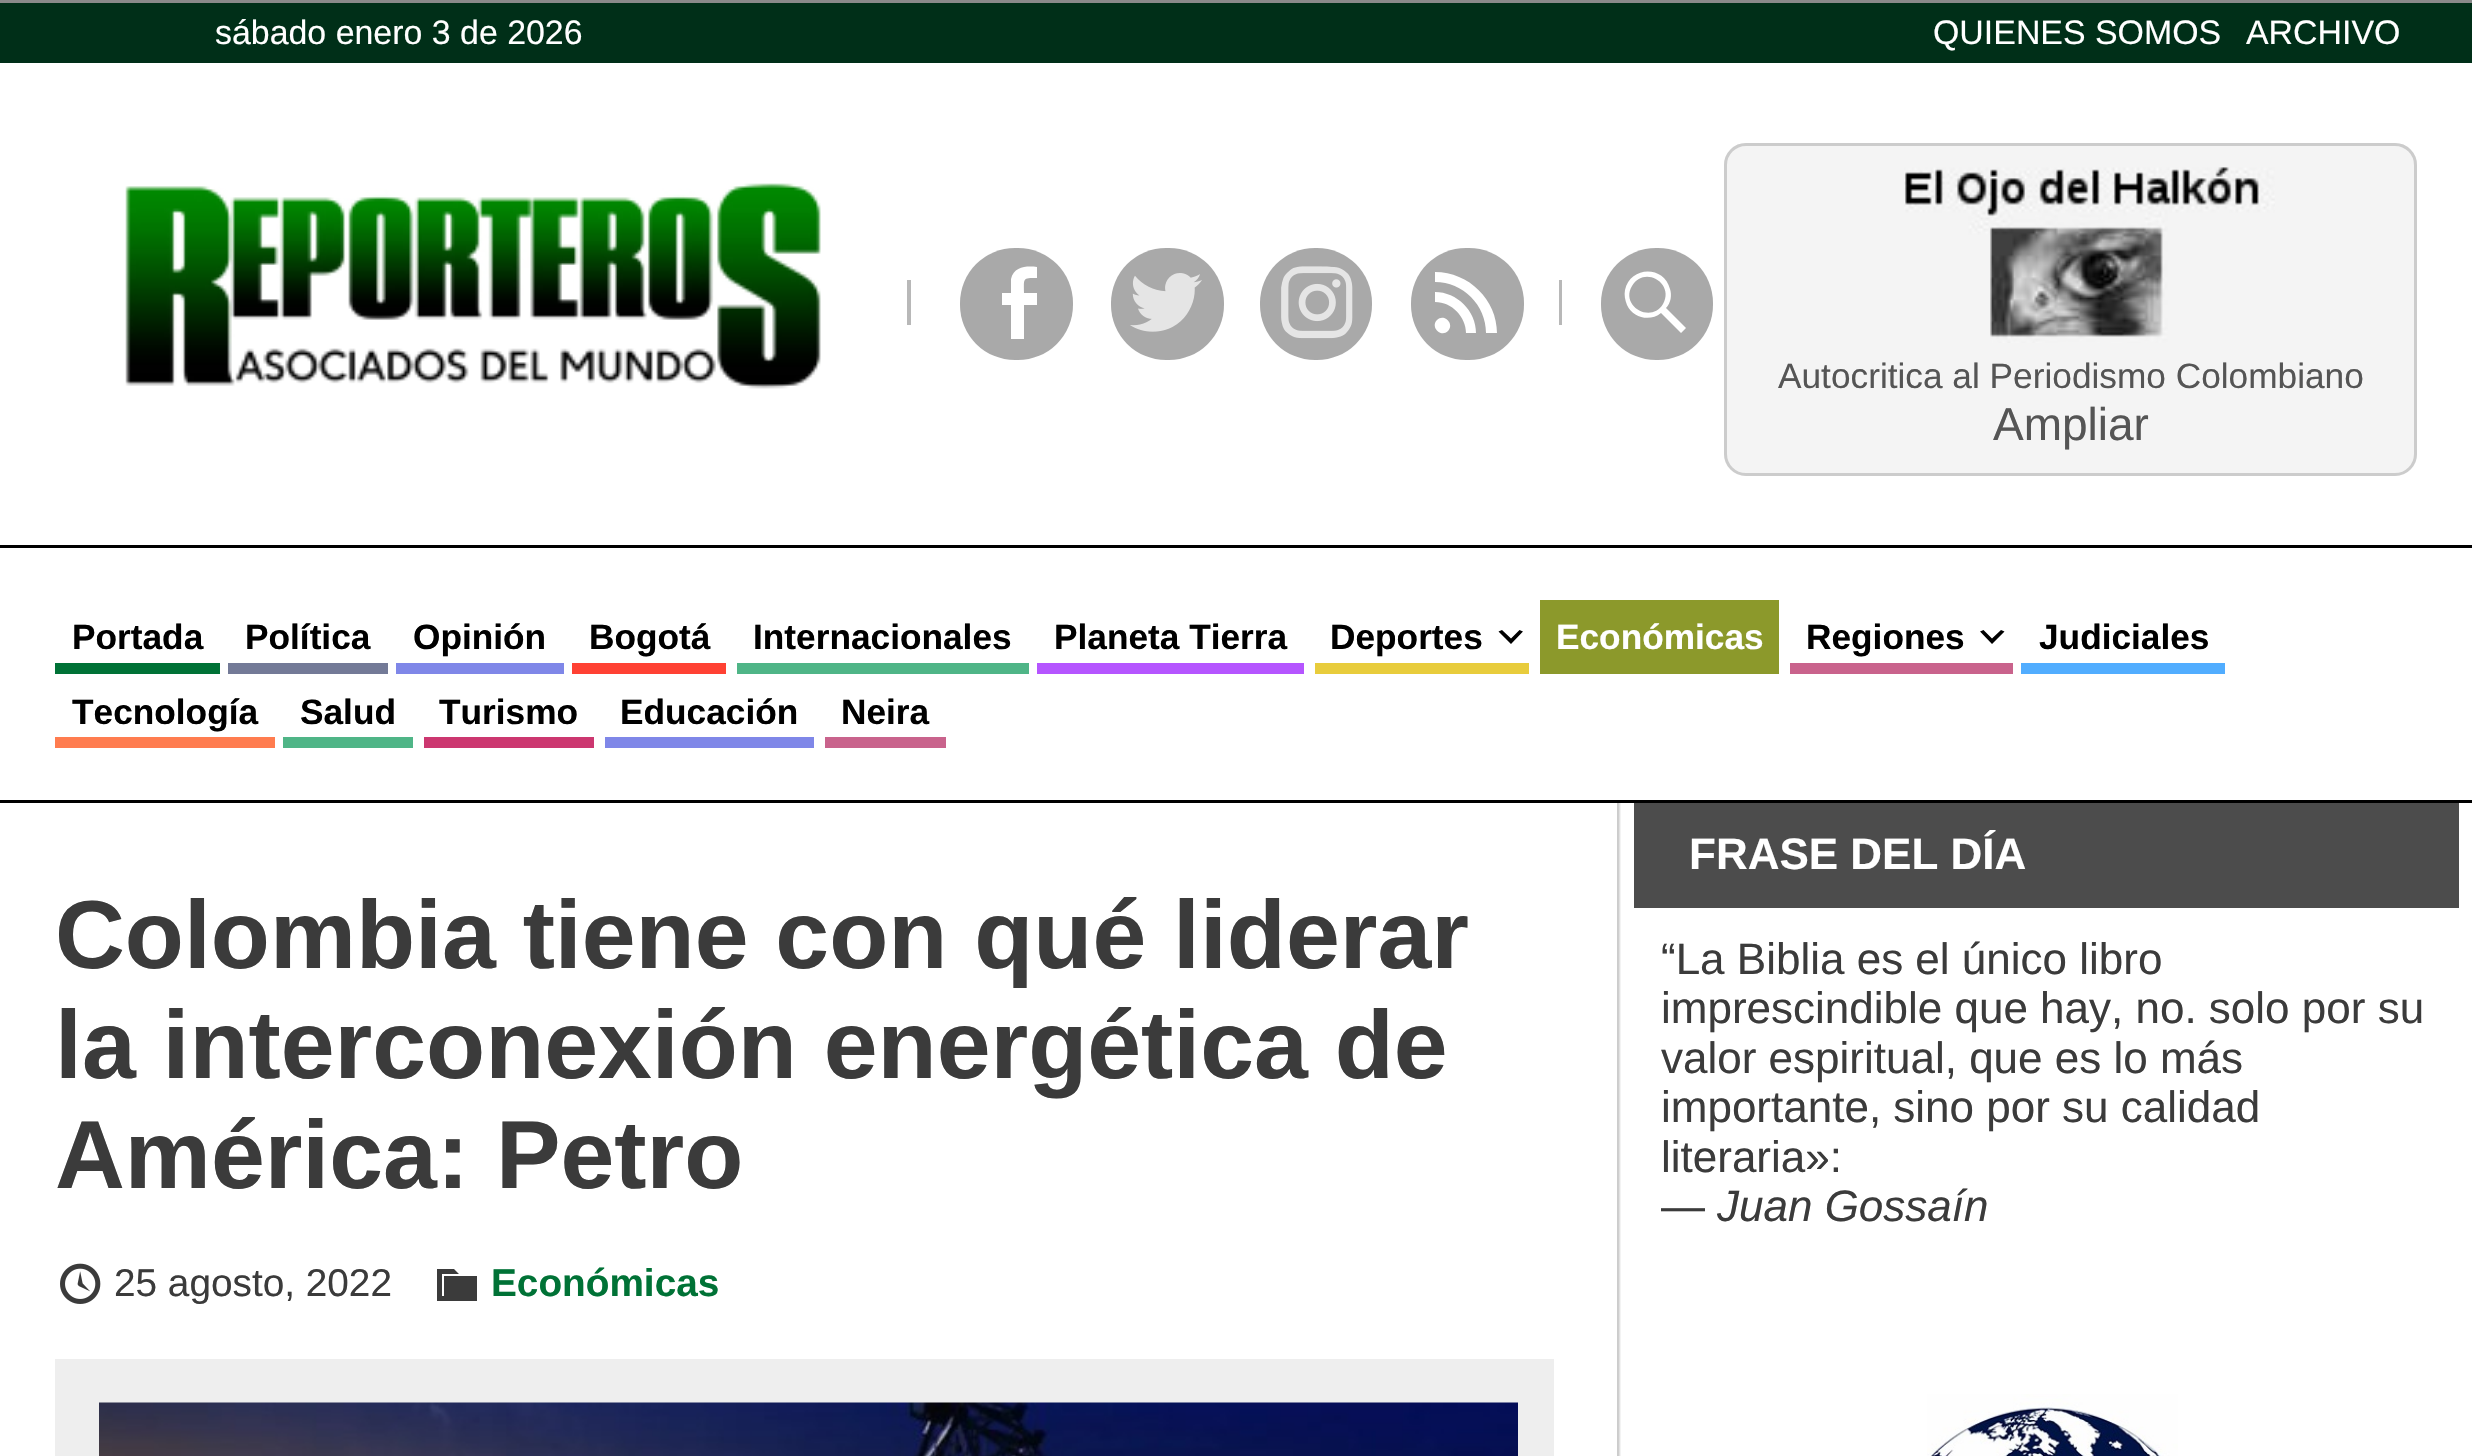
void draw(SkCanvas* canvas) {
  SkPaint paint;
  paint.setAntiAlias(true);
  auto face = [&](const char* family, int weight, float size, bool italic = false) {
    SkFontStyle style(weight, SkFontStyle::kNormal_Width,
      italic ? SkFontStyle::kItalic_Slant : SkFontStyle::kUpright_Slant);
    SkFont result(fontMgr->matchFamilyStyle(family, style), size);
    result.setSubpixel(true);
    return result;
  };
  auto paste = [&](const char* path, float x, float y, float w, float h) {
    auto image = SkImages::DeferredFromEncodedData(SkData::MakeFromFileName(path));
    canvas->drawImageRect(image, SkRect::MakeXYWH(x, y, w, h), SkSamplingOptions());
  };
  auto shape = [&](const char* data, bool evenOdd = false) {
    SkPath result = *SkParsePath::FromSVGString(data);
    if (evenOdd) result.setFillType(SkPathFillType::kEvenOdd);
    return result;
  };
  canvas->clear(0xffffffff);
  paint.setColor(0xff8a8a8a);
  canvas->drawRect(SkRect::MakeXYWH(0, 0, 2472, 3), paint);
  paint.setColor(0xff002f18);
  canvas->drawRect(SkRect::MakeXYWH(0, 3, 2472, 60), paint);
  paste("img/1.png", 125, 183, 696, 206);
  paint.setColor(0xffb8b8b8);
  canvas->drawRect(SkRect::MakeXYWH(907, 280, 4, 45), paint);
  paint.setColor(0xffa9a9a9);
  canvas->drawRoundRect(SkRect::MakeXYWH(960, 248, 113, 112), 55, 55, paint);
  paint.setColor(0xffffffff);
  canvas->drawPath(shape("M1024 293H1037V305H1024V339H1011V305H1002V293H1011V279C1014 266 1027 266 1037 267V278C1022 278 1024 278 1024 293Z"), paint);
  paint.setColor(0xffa9a9a9);
  canvas->drawRoundRect(SkRect::MakeXYWH(1111, 248, 113, 112), 55, 55, paint);
  paste("img/2.png", 1130, 273, 72, 59);
  canvas->drawRoundRect(SkRect::MakeXYWH(1260, 248, 112, 112), 55, 55, paint);
  paste("img/3.png", 1281, 266, 72, 73);
  canvas->drawRoundRect(SkRect::MakeXYWH(1411, 248, 113, 112), 55, 55, paint);
  paint.setColor(0xffffffff);
  canvas->drawPath(shape("M1435 292C1457 292 1476 311 1476 333H1466C1466 317 1452 302 1435 302ZM1435 272C1469 272 1497 300 1497 333H1486C1486 305 1463 282 1435 282ZM1437 320C1444 313 1455 324 1448 331C1441 338 1430 327 1437 320Z"), paint);
  paint.setColor(0xffb8b8b8);
  canvas->drawRect(SkRect::MakeXYWH(1559, 280, 3, 45), paint);
  paint.setColor(0xffa9a9a9);
  canvas->drawRoundRect(SkRect::MakeXYWH(1601, 248, 112, 112), 55, 55, paint);
  paint.setColor(0xffffffff);
  canvas->drawPath(shape("M1686 328L1681 333L1661 313C1650 322 1633 318 1627 305C1625 300 1624 295 1625 290C1630 266 1664 265 1670 289C1672 295 1671 303 1666 308ZM1632 286C1620 306 1651 324 1663 304C1675 283 1644 265 1632 286Z"), paint);
  paint.setColor(0xfff4f4f4);
  canvas->drawRoundRect(SkRect::MakeXYWH(1724, 143, 693, 333), 22, 22, paint);
  paste("img/4.png", 1904, 167, 371, 176);
  paint.setStroke(true);
  paint.setStrokeWidth(3);
  paint.setColor(0xffcccccc);
  canvas->drawRoundRect(SkRect::MakeXYWH(1725.5f, 144.5f, 690, 330), 20.5f, 20.5f, paint);
  paint.setStroke(false);
  {
    const struct { float x, y, w, h; SkColor color; } items[] = {
      {0, 545, 2472, 3, 0xff000000},
      {0, 800, 2472, 3, 0xff000000},
      {55, 663, 165, 11, 0xff007236},
      {228, 663, 160, 11, 0xff737a97},
      {396, 663, 168, 11, 0xff7f87e8},
      {572, 663, 154, 11, 0xffff4133},
      {737, 663, 292, 11, 0xff4fb587},
      {1037, 663, 267, 11, 0xffb555ff},
      {1315, 663, 214, 11, 0xffe8cc3c},
    };
    for (auto [x, y, w, h, color] : items) {
      paint.setColor(color);
      canvas->drawRect(SkRect::MakeXYWH(x, y, w, h), paint);
    }
  }
  paint.setColor(0xff000000);
  canvas->drawPath(shape("M1502 630L1511 638.5L1519.5 630L1523 631.5L1511 644L1498.5 631.5Z"), paint);
  paint.setColor(0xff8c992b);
  canvas->drawRect(SkRect::MakeXYWH(1540, 600, 239, 74), paint);
  paint.setColor(0xffc9638c);
  canvas->drawRect(SkRect::MakeXYWH(1790, 663, 223, 11), paint);
  paint.setColor(0xff000000);
  canvas->drawPath(shape("M1983.5 630L1992 638.5L2001 630L2004.5 631.5L1992 644L1980 631.5Z"), paint);
  {
    const struct { float x, y, w, h; SkColor color; } items[] = {
      {2021, 663, 204, 11, 0xff51adff},
      {55, 737, 220, 11, 0xffff7c4f},
      {283, 737, 130, 11, 0xff4fb587},
      {424, 737, 170, 11, 0xffcc3770},
      {605, 737, 209, 11, 0xff7f87e8},
      {825, 737, 121, 11, 0xffc9638c},
    };
    for (auto [x, y, w, h, color] : items) {
      paint.setColor(color);
      canvas->drawRect(SkRect::MakeXYWH(x, y, w, h), paint);
    }
  }
  paste("img/5.png", 1617, 803, 4, 653);
  paste("img/6.png", 60, 1263, 41, 41);
  paint.setColor(0xff3b3b3b);
  canvas->drawPath(shape("M444 1276H477V1301H437V1269H454L459 1274H442V1296H444Z"), paint);
  paint.setColor(0xffeeeeee);
  canvas->drawRect(SkRect::MakeXYWH(55, 1359, 1499, 97), paint);
  paste("img/7.png", 99, 1402, 1419, 54);
  paint.setColor(0xff4c4c4c);
  canvas->drawRect(SkRect::MakeXYWH(1634, 803, 825, 105), paint);
  paste("img/8.png", 1927, 1394, 251, 62);
  auto f0 = face("Liberation Sans", 400, 33.9f);
  paint.setColor(0xffffffff);
  {
    const struct { const char* s; float x, y; } items[] = {
      {"sábado enero 3 de 2026", 215, 44},
      {"QUIENES SOMOS", 1933, 44},
      {"ARCHIVO", 2246, 44},
    };
    for (auto [s, x, y] : items) {
      canvas->drawString(s, x, y, f0, paint);
    }
  }
  auto f1 = face("Liberation Sans", 400, 35.25f);
  paint.setColor(0xff555555);
  canvas->drawString("Autocritica al Periodismo Colombiano", 1778, 388, f1, paint);
  auto f2 = face("Liberation Sans", 400, 46);
  canvas->drawString("Ampliar", 1993, 440, f2, paint);
  auto f3 = face("Liberation Sans", 700, 35.25f);
  paint.setColor(0xff000000);
  {
    const struct { const char* s; float x, y; } items[] = {
      {"Portada", 72, 649},
      {"Política", 245, 649},
      {"Opinión", 413, 649},
      {"Bogotá", 589, 649},
      {"Internacionales", 753, 649},
      {"Planeta Tierra", 1054, 649},
      {"Deportes", 1330, 649},
    };
    for (auto [s, x, y] : items) {
      canvas->drawString(s, x, y, f3, paint);
    }
  }
  paint.setColor(0xffffffff);
  canvas->drawString("Económicas", 1556, 649, f3, paint);
  paint.setColor(0xff000000);
  {
    const struct { const char* s; float x, y; } items[] = {
      {"Regiones", 1806, 649},
      {"Judiciales", 2039, 649},
      {"Tecnología", 72, 724},
      {"Salud", 300, 724},
      {"Turismo", 439, 724},
      {"Educación", 620, 724},
      {"Neira", 841, 724},
    };
    for (auto [s, x, y] : items) {
      canvas->drawString(s, x, y, f3, paint);
    }
  }
  auto f4 = face("Liberation Sans", 700, 96.75f);
  paint.setColor(0xff3b3b3b);
  {
    const struct { const char* s; float x, y; } items[] = {
      {"Colombia tiene con qué liderar", 55, 968},
      {"la interconexión energética de", 55, 1078},
      {"América: Petro", 55, 1188},
    };
    for (auto [s, x, y] : items) {
      canvas->drawString(s, x, y, f4, paint);
    }
  }
  auto f5 = face("Liberation Sans", 400, 38.75f);
  canvas->drawString("25 agosto, 2022", 114, 1296, f5, paint);
  auto f6 = face("Liberation Sans", 700, 38.75f);
  paint.setColor(0xff007236);
  canvas->drawString("Económicas", 491, 1296, f6, paint);
  auto f7 = face("Liberation Sans", 700, 44);
  paint.setColor(0xffffffff);
  canvas->drawString("FRASE DEL DÍA", 1689, 869, f7, paint);
  auto f8 = face("Liberation Sans", 400, 44);
  paint.setColor(0xff3b3b3b);
  {
    const struct { const char* s; float x, y; } items[] = {
      {"“La Biblia es el único libro", 1661, 974},
      {"imprescindible que hay, no. solo por su", 1661, 1023},
      {"valor espiritual, que es lo más", 1661, 1073},
      {"importante, sino por su calidad", 1661, 1122},
      {"literaria»:", 1661, 1172},
      {"—", 1661, 1221},
    };
    for (auto [s, x, y] : items) {
      canvas->drawString(s, x, y, f8, paint);
    }
  }
  auto f9 = face("Liberation Sans", 400, 44, true);
  canvas->drawString("Juan Gossaín", 1717, 1221, f9, paint);
}
